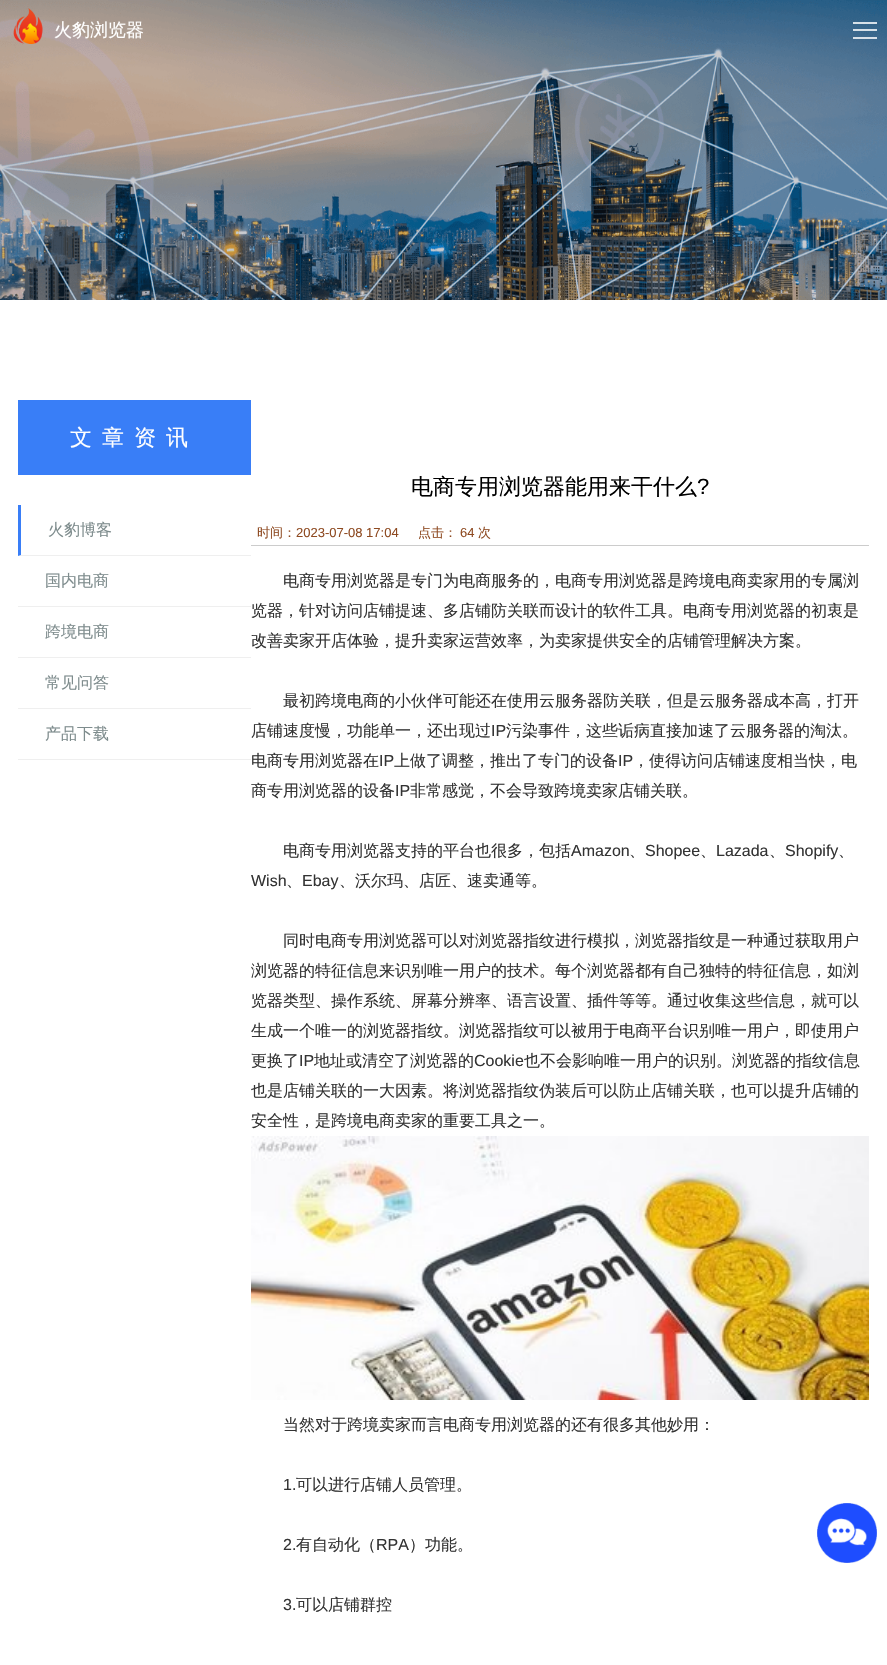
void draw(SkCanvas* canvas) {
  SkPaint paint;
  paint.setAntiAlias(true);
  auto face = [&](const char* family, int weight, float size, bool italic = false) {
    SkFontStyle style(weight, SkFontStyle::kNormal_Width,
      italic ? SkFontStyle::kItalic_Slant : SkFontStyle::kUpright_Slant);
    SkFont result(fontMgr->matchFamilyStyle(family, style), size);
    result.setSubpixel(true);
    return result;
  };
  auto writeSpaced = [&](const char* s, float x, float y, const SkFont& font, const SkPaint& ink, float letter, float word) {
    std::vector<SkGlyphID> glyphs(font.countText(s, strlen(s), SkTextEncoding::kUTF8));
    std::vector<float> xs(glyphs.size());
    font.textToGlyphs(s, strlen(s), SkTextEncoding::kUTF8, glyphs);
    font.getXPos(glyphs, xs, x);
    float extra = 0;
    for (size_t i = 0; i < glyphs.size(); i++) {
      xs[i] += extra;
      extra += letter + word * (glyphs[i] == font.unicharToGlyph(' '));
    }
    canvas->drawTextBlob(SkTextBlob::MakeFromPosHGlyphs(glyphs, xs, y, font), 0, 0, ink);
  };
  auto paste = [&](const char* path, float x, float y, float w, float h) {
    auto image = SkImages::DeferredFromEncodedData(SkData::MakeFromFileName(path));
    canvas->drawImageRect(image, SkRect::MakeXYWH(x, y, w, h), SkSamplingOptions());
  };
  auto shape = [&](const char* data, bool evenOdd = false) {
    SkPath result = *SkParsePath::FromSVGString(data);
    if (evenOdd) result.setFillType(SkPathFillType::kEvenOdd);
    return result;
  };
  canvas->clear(0xffffffff);
  paste("img/2.png", 0, 0, 887, 300);
  paste("img/1.png", 13, 8, 30, 36);
  {
    const struct { float x, y, w, h; SkColor color; } items[] = {
      {853, 22, 24, 2, 0xccffffff},
      {853, 29, 24, 2, 0xccffffff},
      {853, 37, 24, 2, 0xccffffff},
      {18, 400, 233, 75, 0xff397ef7},
    };
    for (auto [x, y, w, h, color] : items) {
      paint.setColor(color);
      canvas->drawRect(SkRect::MakeXYWH(x, y, w, h), paint);
    }
  }
  paint.setColor(0xffefefef);
  canvas->drawPath(shape("M251 556H18L21 555H251Z"), paint);
  paint.setColor(0xff397ef7);
  canvas->drawPath(shape("M18 556V505H21V555Z"), paint);
  {
    const struct { float x, y, w, h; SkColor color; } items[] = {
      {18, 606, 233, 1, 0xffefefef},
      {18, 657, 233, 1, 0xffefefef},
      {18, 708, 233, 1, 0xffefefef},
      {18, 759, 233, 1, 0xffefefef},
      {251, 545, 618, 1, 0xffcccccc},
    };
    for (auto [x, y, w, h, color] : items) {
      paint.setColor(color);
      canvas->drawRect(SkRect::MakeXYWH(x, y, w, h), paint);
    }
  }
  paste("img/3.png", 251, 1136, 618, 264);
  paste("img/4.png", 817, 1503, 60, 60);
  auto f0 = face("WenQuanYi Zen Hei", 500, 18);
  paint.setColor(0xffffffff);
  canvas->drawString("火豹浏览器", 54, 36, f0, paint);
  auto f1 = face("WenQuanYi Zen Hei", 500, 22);
  writeSpaced("文章资讯", 70, 445, f1, paint, 10, 0);
  auto f2 = face("WenQuanYi Zen Hei", 500, 16);
  paint.setColor(0xff7e8c8d);
  {
    const struct { const char* s; float x, y; } items[] = {
      {"火豹博客", 48, 535},
      {"国内电商", 45, 586},
      {"跨境电商", 45, 637},
      {"常见问答", 45, 688},
      {"产品下载", 45, 739},
    };
    for (auto [s, x, y] : items) {
      canvas->drawString(s, x, y, f2, paint);
    }
  }
  paint.setColor(0xff000000);
  canvas->drawString("电商专用浏览器能用来干什么", 411, 494, f1, paint);
  auto f3 = face("Liberation Sans", 400, 22);
  canvas->drawString("?", 697, 494, f3, paint);
  auto f4 = face("WenQuanYi Zen Hei", 500, 13);
  paint.setColor(0xff8e4a21);
  canvas->drawString("时间：", 257, 537, f4, paint);
  auto f5 = face("Liberation Sans", 400, 13);
  canvas->drawString("2023-07-08 17:04", 296, 537, f5, paint);
  canvas->drawString("点击：", 418, 537, f4, paint);
  canvas->drawString("64", 460, 537, f5, paint);
  canvas->drawString("次", 478, 537, f4, paint);
  paint.setColor(0xff333333);
  {
    const struct { const char* s; float x, y; } items[] = {
      {"电商专用浏览器是专门为电商服务的，电商专用浏览器是跨境电商卖家用的专属浏", 283, 586},
      {"览器，针对访问店铺提速、多店铺防关联而设计的软件工具。电商专用浏览器的初衷是", 251, 616},
      {"改善卖家开店体验，提升卖家运营效率，为卖家提供安全的店铺管理解决方案。", 251, 646},
      {"最初跨境电商的小伙伴可能还在使用云服务器防关联，但是云服务器成本高，打开", 283, 706},
      {"店铺速度慢，功能单一，还出现过", 251, 736},
    };
    for (auto [s, x, y] : items) {
      canvas->drawString(s, x, y, f2, paint);
    }
  }
  auto f6 = face("Liberation Sans", 400, 16);
  canvas->drawString("IP", 491, 736, f6, paint);
  canvas->drawString("污染事件，这些诟病直接加速了云服务器的淘汰。", 506, 736, f2, paint);
  canvas->drawString("电商专用浏览器在", 251, 766, f2, paint);
  canvas->drawString("IP", 379, 766, f6, paint);
  canvas->drawString("上做了调整，推出了专门的设备", 394, 766, f2, paint);
  canvas->drawString("IP", 618, 766, f6, paint);
  canvas->drawString("，使得访问店铺速度相当快，电", 633, 766, f2, paint);
  canvas->drawString("商专用浏览器的设备", 251, 796, f2, paint);
  canvas->drawString("IP", 395, 796, f6, paint);
  canvas->drawString("非常感觉，不会导致跨境卖家店铺关联。", 410, 796, f2, paint);
  canvas->drawString("电商专用浏览器支持的平台也很多，包括", 283, 856, f2, paint);
  canvas->drawString("Amazon", 571, 856, f6, paint);
  canvas->drawString("、", 629, 856, f2, paint);
  canvas->drawString("Shopee", 645, 856, f6, paint);
  canvas->drawString("、", 700, 856, f2, paint);
  canvas->drawString("Lazada", 716, 856, f6, paint);
  canvas->drawString("、", 769, 856, f2, paint);
  canvas->drawString("Shopify", 785, 856, f6, paint);
  canvas->drawString("、", 838, 856, f2, paint);
  canvas->drawString("Wish", 251, 886, f6, paint);
  canvas->drawString("、", 286, 886, f2, paint);
  canvas->drawString("Ebay", 302, 886, f6, paint);
  {
    const struct { const char* s; float x, y; } items[] = {
      {"、沃尔玛、店匠、速卖通等。", 339, 886},
      {"同时电商专用浏览器可以对浏览器指纹进行模拟，浏览器指纹是一种通过获取用户", 283, 946},
      {"浏览器的特征信息来识别唯一用户的技术。每个浏览器都有自己独特的特征信息，如浏", 251, 976},
      {"览器类型、操作系统、屏幕分辨率、语言设置、插件等等。通过收集这些信息，就可以", 251, 1006},
      {"生成一个唯一的浏览器指纹。浏览器指纹可以被用于电商平台识别唯一用户，即使用户", 251, 1036},
      {"更换了", 251, 1066},
    };
    for (auto [s, x, y] : items) {
      canvas->drawString(s, x, y, f2, paint);
    }
  }
  canvas->drawString("IP", 299, 1066, f6, paint);
  canvas->drawString("地址或清空了浏览器的", 314, 1066, f2, paint);
  canvas->drawString("Cookie", 474, 1066, f6, paint);
  {
    const struct { const char* s; float x, y; } items[] = {
      {"也不会影响唯一用户的识别。浏览器的指纹信息", 524, 1066},
      {"也是店铺关联的一大因素。将浏览器指纹伪装后可以防止店铺关联，也可以提升店铺的", 251, 1096},
      {"安全性，是跨境电商卖家的重要工具之一。", 251, 1126},
      {"当然对于跨境卖家而言电商专用浏览器的还有很多其他妙用：", 283, 1430},
    };
    for (auto [s, x, y] : items) {
      canvas->drawString(s, x, y, f2, paint);
    }
  }
  canvas->drawString("1.", 283, 1490, f6, paint);
  canvas->drawString("可以进行店铺人员管理。", 296, 1490, f2, paint);
  canvas->drawString("2.", 283, 1550, f6, paint);
  canvas->drawString("有自动化（", 296, 1550, f2, paint);
  canvas->drawString("RPA", 376, 1550, f6, paint);
  canvas->drawString("）功能。", 409, 1550, f2, paint);
  canvas->drawString("3.", 283, 1610, f6, paint);
  canvas->drawString("可以店铺群控", 296, 1610, f2, paint);
}
